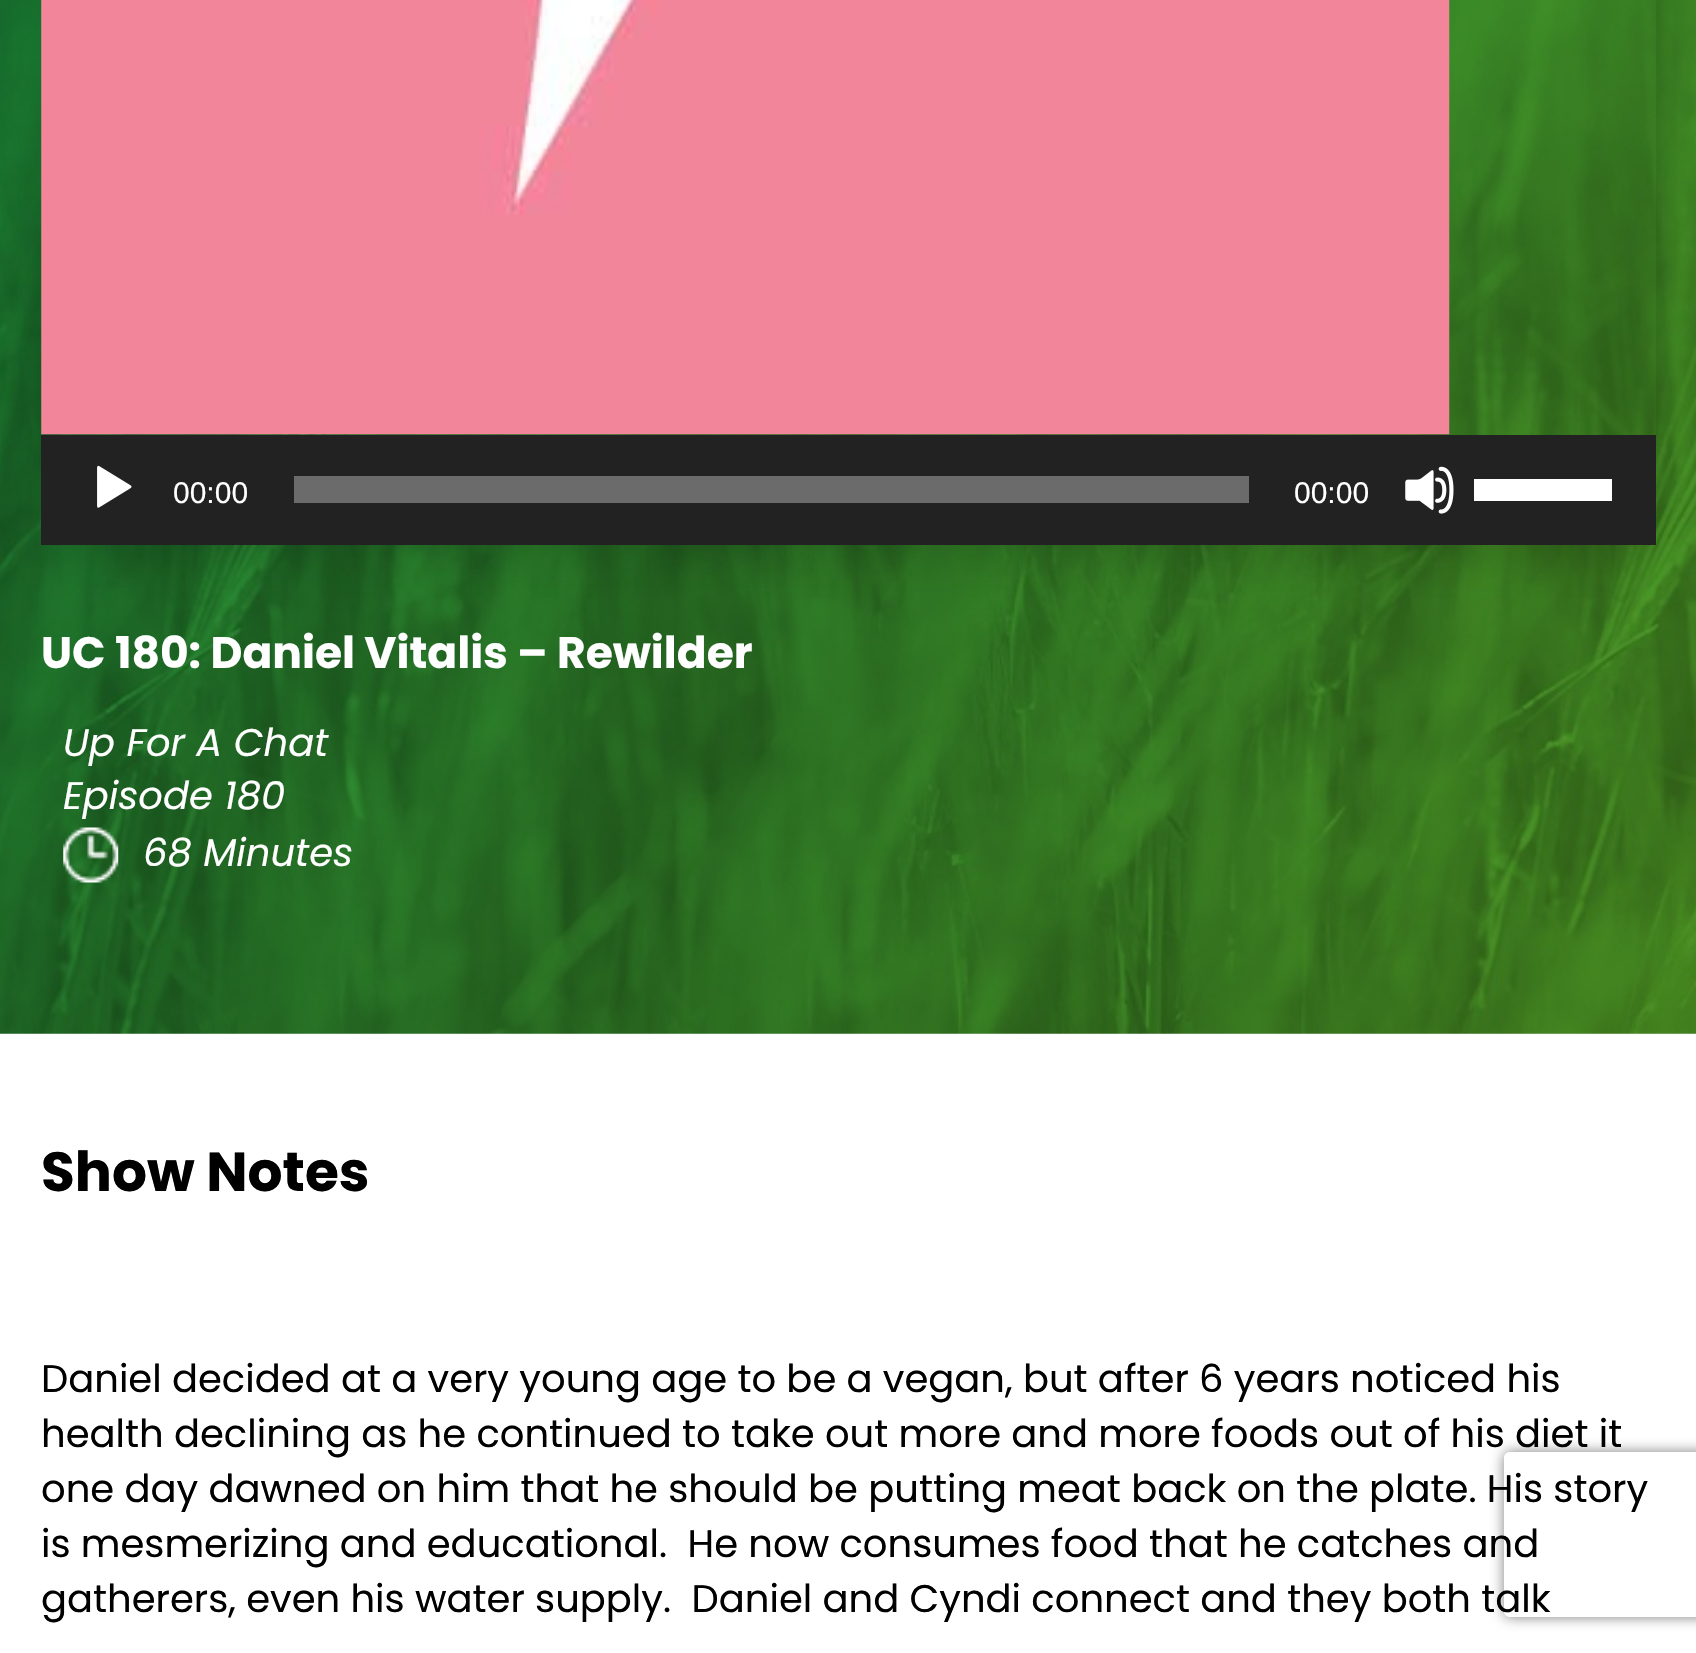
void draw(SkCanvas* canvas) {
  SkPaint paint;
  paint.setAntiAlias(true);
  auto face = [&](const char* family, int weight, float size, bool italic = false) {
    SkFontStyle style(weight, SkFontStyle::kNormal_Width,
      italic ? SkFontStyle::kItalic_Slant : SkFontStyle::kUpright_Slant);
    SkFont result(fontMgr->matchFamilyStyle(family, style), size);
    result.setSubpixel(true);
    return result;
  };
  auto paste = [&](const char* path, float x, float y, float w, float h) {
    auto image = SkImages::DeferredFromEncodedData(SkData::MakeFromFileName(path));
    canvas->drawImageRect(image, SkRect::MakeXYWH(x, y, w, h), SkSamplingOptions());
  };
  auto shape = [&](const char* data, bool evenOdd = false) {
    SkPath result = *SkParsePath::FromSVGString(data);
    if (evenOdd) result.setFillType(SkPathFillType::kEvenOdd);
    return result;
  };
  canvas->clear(0xffffffff);
  paste("img/1.png", 0, 0, 1696, 1034);
  canvas->save();
  canvas->clipPath(shape("M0 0H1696V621H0ZM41-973H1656V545H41Z", true), true);
  paint.setColor(0x26000000);
  paint.setMaskFilter(SkMaskFilter::MakeBlur(kNormal_SkBlurStyle, 20.5f));
  canvas->drawRect(SkRect::MakeXYWH(41, -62, 1615, 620), paint);
  paint.setMaskFilter(nullptr);
  canvas->restore();
  paste("img/2.png", 41, 0, 1409, 435);
  paint.setColor(0xff222222);
  canvas->drawRect(SkRect::MakeXYWH(41, 435, 1615, 110), paint);
  paste("img/3.png", 97, 465, 35, 43);
  paint.setColor(0xff6b6b6b);
  canvas->drawRect(SkRect::MakeXYWH(294, 476, 955, 27), paint);
  paste("img/4.png", 1405, 466, 49, 48);
  paint.setColor(0xffffffff);
  canvas->drawRect(SkRect::MakeXYWH(1474, 479, 138, 22), paint);
  paste("img/5.png", 63, 827, 56, 56);
  canvas->save();
  canvas->clipPath(shape("M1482 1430H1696V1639H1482ZM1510 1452H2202C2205.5 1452 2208 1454.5 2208 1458V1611C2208 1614.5 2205.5 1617 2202 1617H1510C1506.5 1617 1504 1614.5 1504 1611V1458C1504 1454.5 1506.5 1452 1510 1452Z", true), true);
  paint.setColor(0xff808080);
  paint.setMaskFilter(SkMaskFilter::MakeBlur(kNormal_SkBlurStyle, 7));
  canvas->drawRoundRect(SkRect::MakeXYWH(1504, 1452, 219, 165), 6, 6, paint);
  paint.setMaskFilter(nullptr);
  canvas->restore();
  auto f0 = face("Liberation Sans", 400, 30);
  paint.setColor(0xffffffff);
  canvas->drawString("00:00", 173, 503, f0, paint);
  canvas->drawString("00:00", 1294, 503, f0, paint);
  auto f1 = face("Poppins", 700, 44);
  canvas->drawString("UC 180: Daniel Vitalis – Rewilder", 41, 668, f1, paint);
  auto f2 = face("Poppins", 400, 38.5f, true);
  {
    const struct { const char* s; float x, y; } items[] = {
      {"Up For A Chat", 63, 756},
      {"Episode 180", 63, 809},
      {"68 Minutes", 143, 866},
    };
    for (auto [s, x, y] : items) {
      canvas->drawString(s, x, y, f2, paint);
    }
  }
  auto f3 = face("Poppins", 700, 55);
  paint.setColor(0xff000000);
  canvas->drawString("Show Notes", 41, 1191, f3, paint);
  auto f4 = face("Poppins", 400, 38.5f);
  {
    const struct { const char* s; float x, y; } items[] = {
      {"Daniel decided at a very young age to be a vegan, but after 6 years noticed his", 41, 1392},
      {"health declining as he continued to take out more and more foods out of his diet it", 41, 1447},
      {"one day dawned on him that he should be putting meat back on the plate. His story", 41, 1502},
      {"is mesmerizing and educational.  He now consumes food that he catches and", 41, 1557},
      {"gatherers, even his water supply.  Daniel and Cyndi connect and they both talk", 41, 1612},
    };
    for (auto [s, x, y] : items) {
      canvas->drawString(s, x, y, f4, paint);
    }
  }
}
